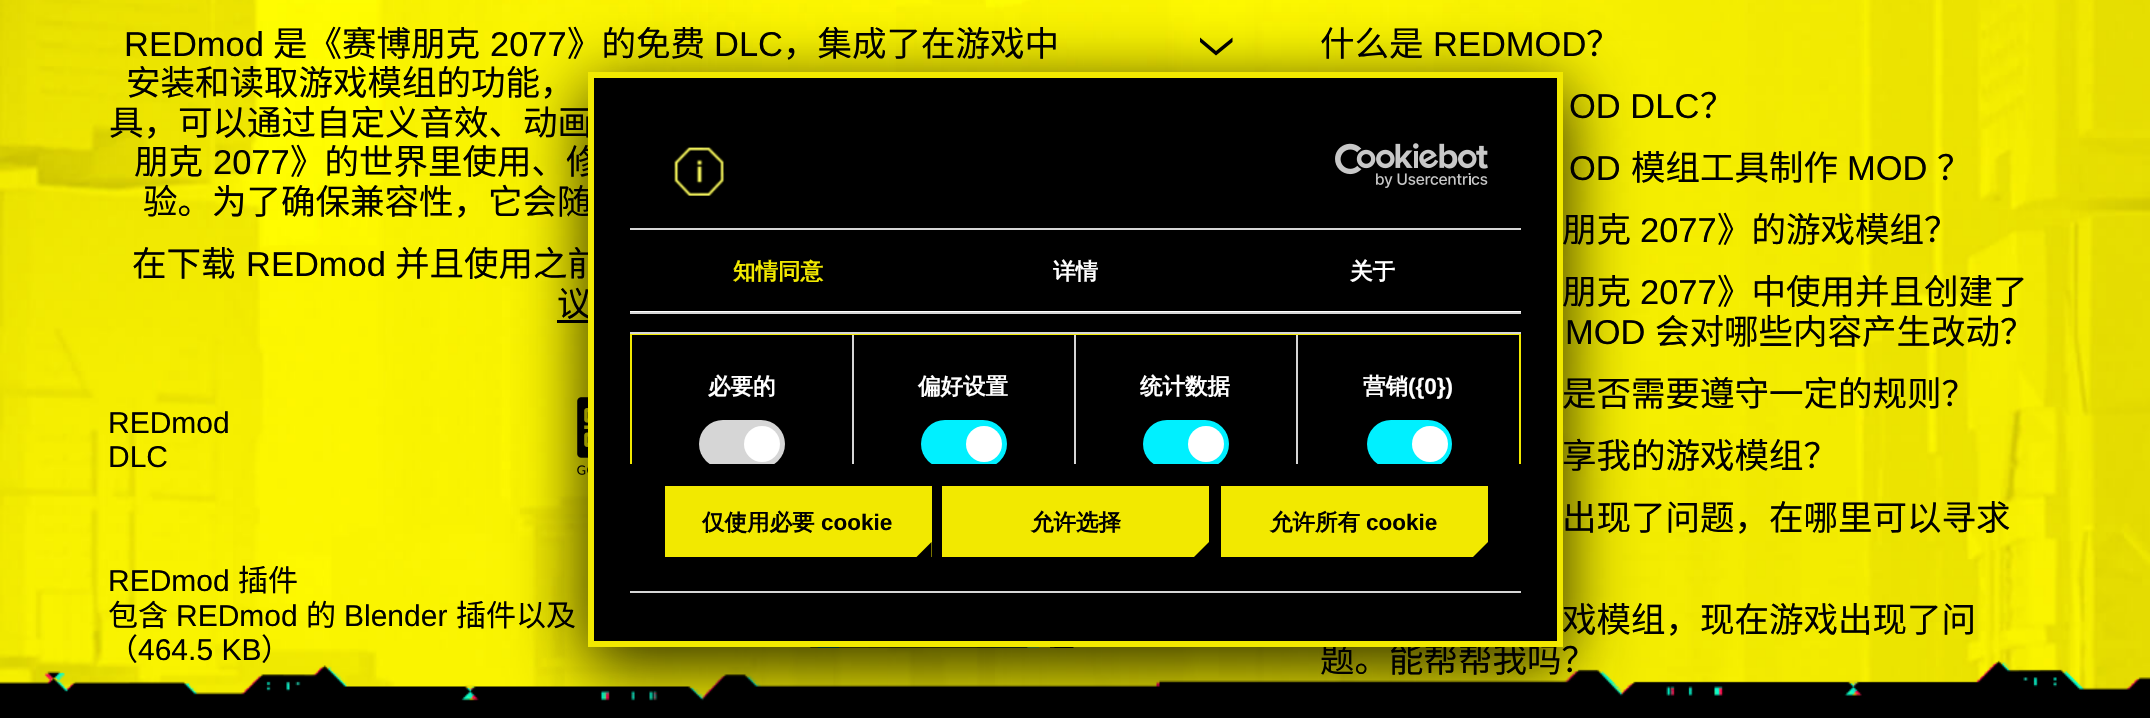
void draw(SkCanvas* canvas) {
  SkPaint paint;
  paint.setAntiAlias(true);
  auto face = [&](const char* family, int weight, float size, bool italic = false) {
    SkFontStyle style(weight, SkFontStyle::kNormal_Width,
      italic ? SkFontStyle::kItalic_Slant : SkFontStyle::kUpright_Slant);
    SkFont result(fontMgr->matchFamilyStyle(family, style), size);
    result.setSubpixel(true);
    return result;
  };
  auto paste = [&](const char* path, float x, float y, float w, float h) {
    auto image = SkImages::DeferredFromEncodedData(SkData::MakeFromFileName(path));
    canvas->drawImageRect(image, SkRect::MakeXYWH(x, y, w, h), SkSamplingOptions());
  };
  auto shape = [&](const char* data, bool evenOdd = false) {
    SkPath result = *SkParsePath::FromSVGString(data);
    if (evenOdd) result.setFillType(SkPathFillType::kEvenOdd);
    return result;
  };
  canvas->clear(0xffffffff);
  paste("img/1.png", 0, 0, 2150, 701);
  paint.setColor(0xff000000);
  canvas->drawRect(SkRect::MakeXYWH(557, 320, 34, 3), paint);
  paste("img/2.png", 577, 397, 11, 78);
  paste("img/3.png", 810, 647, 264, 1);
  canvas->drawPath(shape("M1232.5 42L1216 55.5L1200 42V37.5L1216 51L1232.5 37.5Z", true), paint);
  auto f0 = face("Liberation Sans", 400, 34.5f);
  canvas->drawString("REDmod", 124, 56, f0, paint);
  auto f1 = face("Noto Sans CJK SC", 400, 34.5f);
  canvas->drawString("是《赛博朋克", 273, 56, f1, paint);
  canvas->drawString("2077", 490, 56, f0, paint);
  canvas->drawString("》的免费", 567, 56, f1, paint);
  canvas->drawString("DLC", 714, 56, f0, paint);
  {
    const struct { const char* s; float x, y; } items[] = {
      {"，集成了在游戏中", 783, 56},
      {"安装和读取游戏模组的功能，", 126, 95},
      {"具，可以通过自定义音效、动画", 109, 135},
      {"朋克", 134, 174},
    };
    for (auto [s, x, y] : items) {
      canvas->drawString(s, x, y, f1, paint);
    }
  }
  canvas->drawString("2077", 213, 174, f0, paint);
  {
    const struct { const char* s; float x, y; } items[] = {
      {"》的世界里使用、修", 290, 174},
      {"验。为了确保兼容性，它会随", 143, 214},
      {"在下载", 132, 276},
    };
    for (auto [s, x, y] : items) {
      canvas->drawString(s, x, y, f1, paint);
    }
  }
  canvas->drawString("REDmod", 246, 276, f0, paint);
  canvas->drawString("并且使用之前", 395, 276, f1, paint);
  canvas->drawString("议", 557, 316, f1, paint);
  auto f2 = face("Liberation Sans", 400, 30);
  {
    const struct { const char* s; float x, y; } items[] = {
      {"REDmod", 108, 433},
      {"DLC", 108, 467},
      {"REDmod", 108, 591},
    };
    for (auto [s, x, y] : items) {
      canvas->drawString(s, x, y, f2, paint);
    }
  }
  auto f3 = face("Noto Sans CJK SC", 400, 30);
  canvas->drawString("插件", 238, 591, f3, paint);
  canvas->drawString("包含", 108, 626, f3, paint);
  canvas->drawString("REDmod", 176, 626, f2, paint);
  canvas->drawString("的", 306, 626, f3, paint);
  canvas->drawString("Blender", 344, 626, f2, paint);
  canvas->drawString("插件以及", 456, 626, f3, paint);
  canvas->drawString("（", 108, 660, f3, paint);
  canvas->drawString("464.5 KB", 138, 660, f2, paint);
  canvas->drawString("）", 261, 660, f3, paint);
  canvas->drawString("什么是", 1320, 56, f1, paint);
  canvas->drawString("REDMOD", 1433, 56, f0, paint);
  canvas->drawString("？", 1586, 56, f1, paint);
  canvas->drawString("OD DLC", 1569, 118, f0, paint);
  canvas->drawString("？", 1700, 118, f1, paint);
  canvas->drawString("OD", 1569, 180, f0, paint);
  canvas->drawString("模组工具制作", 1631, 180, f1, paint);
  canvas->drawString("MOD", 1847, 180, f0, paint);
  canvas->drawString("？", 1937, 180, f1, paint);
  canvas->drawString("朋克", 1562, 242, f1, paint);
  canvas->drawString("2077", 1640, 242, f0, paint);
  canvas->drawString("》的游戏模组？", 1717, 242, f1, paint);
  canvas->drawString("朋克", 1562, 304, f1, paint);
  canvas->drawString("2077", 1640, 304, f0, paint);
  canvas->drawString("》中使用并且创建了", 1717, 304, f1, paint);
  canvas->drawString("MOD", 1565, 344, f0, paint);
  {
    const struct { const char* s; float x, y; } items[] = {
      {"会对哪些内容产生改动？", 1655, 344},
      {"是否需要遵守一定的规则？", 1562, 406},
      {"享我的游戏模组？", 1562, 468},
      {"出现了问题，在哪里可以寻求", 1562, 530},
      {"戏模组，现在游戏出现了问", 1562, 632},
      {"题。能帮帮我吗？", 1320, 672},
    };
    for (auto [s, x, y] : items) {
      canvas->drawString(s, x, y, f1, paint);
    }
  }
  paste("img/4.png", 0, 660, 2150, 58);
  paint.setColor(0xd1000000);
  paint.setMaskFilter(SkMaskFilter::MakeBlur(kNormal_SkBlurStyle, 33));
  canvas->drawRect(SkRect::MakeXYWH(585, 87, 981, 581), paint);
  paint.setMaskFilter(nullptr);
  paint.setColor(0xff000000);
  canvas->drawRect(SkRect::MakeXYWH(591, 75, 969, 569), paint);
  paint.setStroke(true);
  paint.setStrokeWidth(6);
  paint.setColor(0xfff2e900);
  canvas->drawRect(SkRect::MakeXYWH(591, 75, 969, 569), paint);
  paint.setStroke(false);
  paint.setColor(0xffd6d6d6);
  canvas->drawRect(SkRect::MakeXYWH(630, 228, 891, 2), paint);
  paste("img/5.png", 674, 147, 51, 49);
  paste("img/6.png", 1335, 143, 153, 45);
  canvas->drawRect(SkRect::MakeXYWH(630, 312, 891, 2), paint);
  paint.setColor(0xffffffff);
  canvas->drawRect(SkRect::MakeXYWH(630, 311, 891, 1), paint);
  auto f4 = face("WenQuanYi Zen Hei", 700, 22.5f);
  paint.setColor(0xfff2e900);
  canvas->drawString("知情同意", 733, 279, f4, paint);
  paint.setColor(0xffffffff);
  canvas->drawString("详情", 1053, 279, f4, paint);
  canvas->drawString("关于", 1350, 279, f4, paint);
  canvas->save();
  canvas->clipRect(SkRect::MakeXYWH(630, 314, 891, 150));
  paint.setStroke(true);
  paint.setStrokeWidth(2);
  paint.setColor(0xfff2e900);
  canvas->drawRect(SkRect::MakeXYWH(631, 334, 889, 169), paint);
  canvas->restore();
  paint.setStroke(false);
  paint.setColor(0xffd6d6d6);
  canvas->drawRect(SkRect::MakeXYWH(630, 332, 891, 2), paint);
  canvas->drawRect(SkRect::MakeXYWH(852, 335, 2, 129), paint);
  paint.setColor(0xffffffff);
  canvas->drawString("必要的", 708, 394, f4, paint);
  canvas->save();
  canvas->clipRect(SkRect::MakeXYWH(630, 314, 891, 150));
  paint.setColor(0xffd6d6d6);
  canvas->drawRoundRect(SkRect::MakeXYWH(699, 420, 86, 48), 24, 24, paint);
  canvas->restore();
  paint.setColor(0xffffffff);
  canvas->drawCircle(762, 444, 18, paint);
  paint.setColor(0xffd6d6d6);
  canvas->drawRect(SkRect::MakeXYWH(1074, 335, 2, 129), paint);
  paint.setColor(0xffffffff);
  canvas->drawString("偏好设置", 918, 394, f4, paint);
  canvas->save();
  canvas->clipRect(SkRect::MakeXYWH(630, 314, 891, 150));
  paint.setColor(0xff00f0ff);
  canvas->drawRoundRect(SkRect::MakeXYWH(921, 420, 86, 48), 24, 24, paint);
  canvas->restore();
  paint.setColor(0xffffffff);
  canvas->drawCircle(984, 444, 18, paint);
  paint.setColor(0xffd6d6d6);
  canvas->drawRect(SkRect::MakeXYWH(1296, 335, 2, 129), paint);
  paint.setColor(0xffffffff);
  canvas->drawString("统计数据", 1140, 394, f4, paint);
  canvas->save();
  canvas->clipRect(SkRect::MakeXYWH(630, 314, 891, 150));
  paint.setColor(0xff00f0ff);
  canvas->drawRoundRect(SkRect::MakeXYWH(1143, 420, 86, 48), 24, 24, paint);
  canvas->restore();
  paint.setColor(0xffffffff);
  canvas->drawCircle(1206, 444, 18, paint);
  canvas->drawString("营销", 1363, 394, f4, paint);
  auto f5 = face("Liberation Sans", 700, 22.5f);
  canvas->drawString("({0})", 1408, 394, f5, paint);
  canvas->save();
  canvas->clipRect(SkRect::MakeXYWH(630, 314, 891, 150));
  paint.setColor(0xff00f0ff);
  canvas->drawRoundRect(SkRect::MakeXYWH(1367, 420, 85, 48), 24, 24, paint);
  canvas->restore();
  paint.setColor(0xffffffff);
  canvas->drawCircle(1430, 444, 18, paint);
  paint.setColor(0xffd6d6d6);
  canvas->drawRect(SkRect::MakeXYWH(630, 591, 891, 2), paint);
  paint.setColor(0xfff2e900);
  canvas->drawRect(SkRect::MakeXYWH(665, 486, 267, 71), paint);
  paint.setColor(0xff000000);
  canvas->drawString("仅使用必要", 702, 530, f4, paint);
  canvas->drawString("cookie", 821, 530, f5, paint);
  canvas->drawPath(shape("M931.5 557H916.5L931.5 542Z"), paint);
  paint.setColor(0xfff2e900);
  canvas->drawRect(SkRect::MakeXYWH(942, 486, 267, 71), paint);
  paint.setColor(0xff000000);
  canvas->drawString("允许选择", 1031, 530, f4, paint);
  canvas->drawPath(shape("M1209 557H1194L1209 542Z"), paint);
  paint.setColor(0xfff2e900);
  canvas->drawRect(SkRect::MakeXYWH(1221, 486, 267, 71), paint);
  paint.setColor(0xff000000);
  canvas->drawString("允许所有", 1270, 530, f4, paint);
  canvas->drawString("cookie", 1366, 530, f5, paint);
  canvas->drawPath(shape("M1488 557H1473L1488 542Z"), paint);
}
